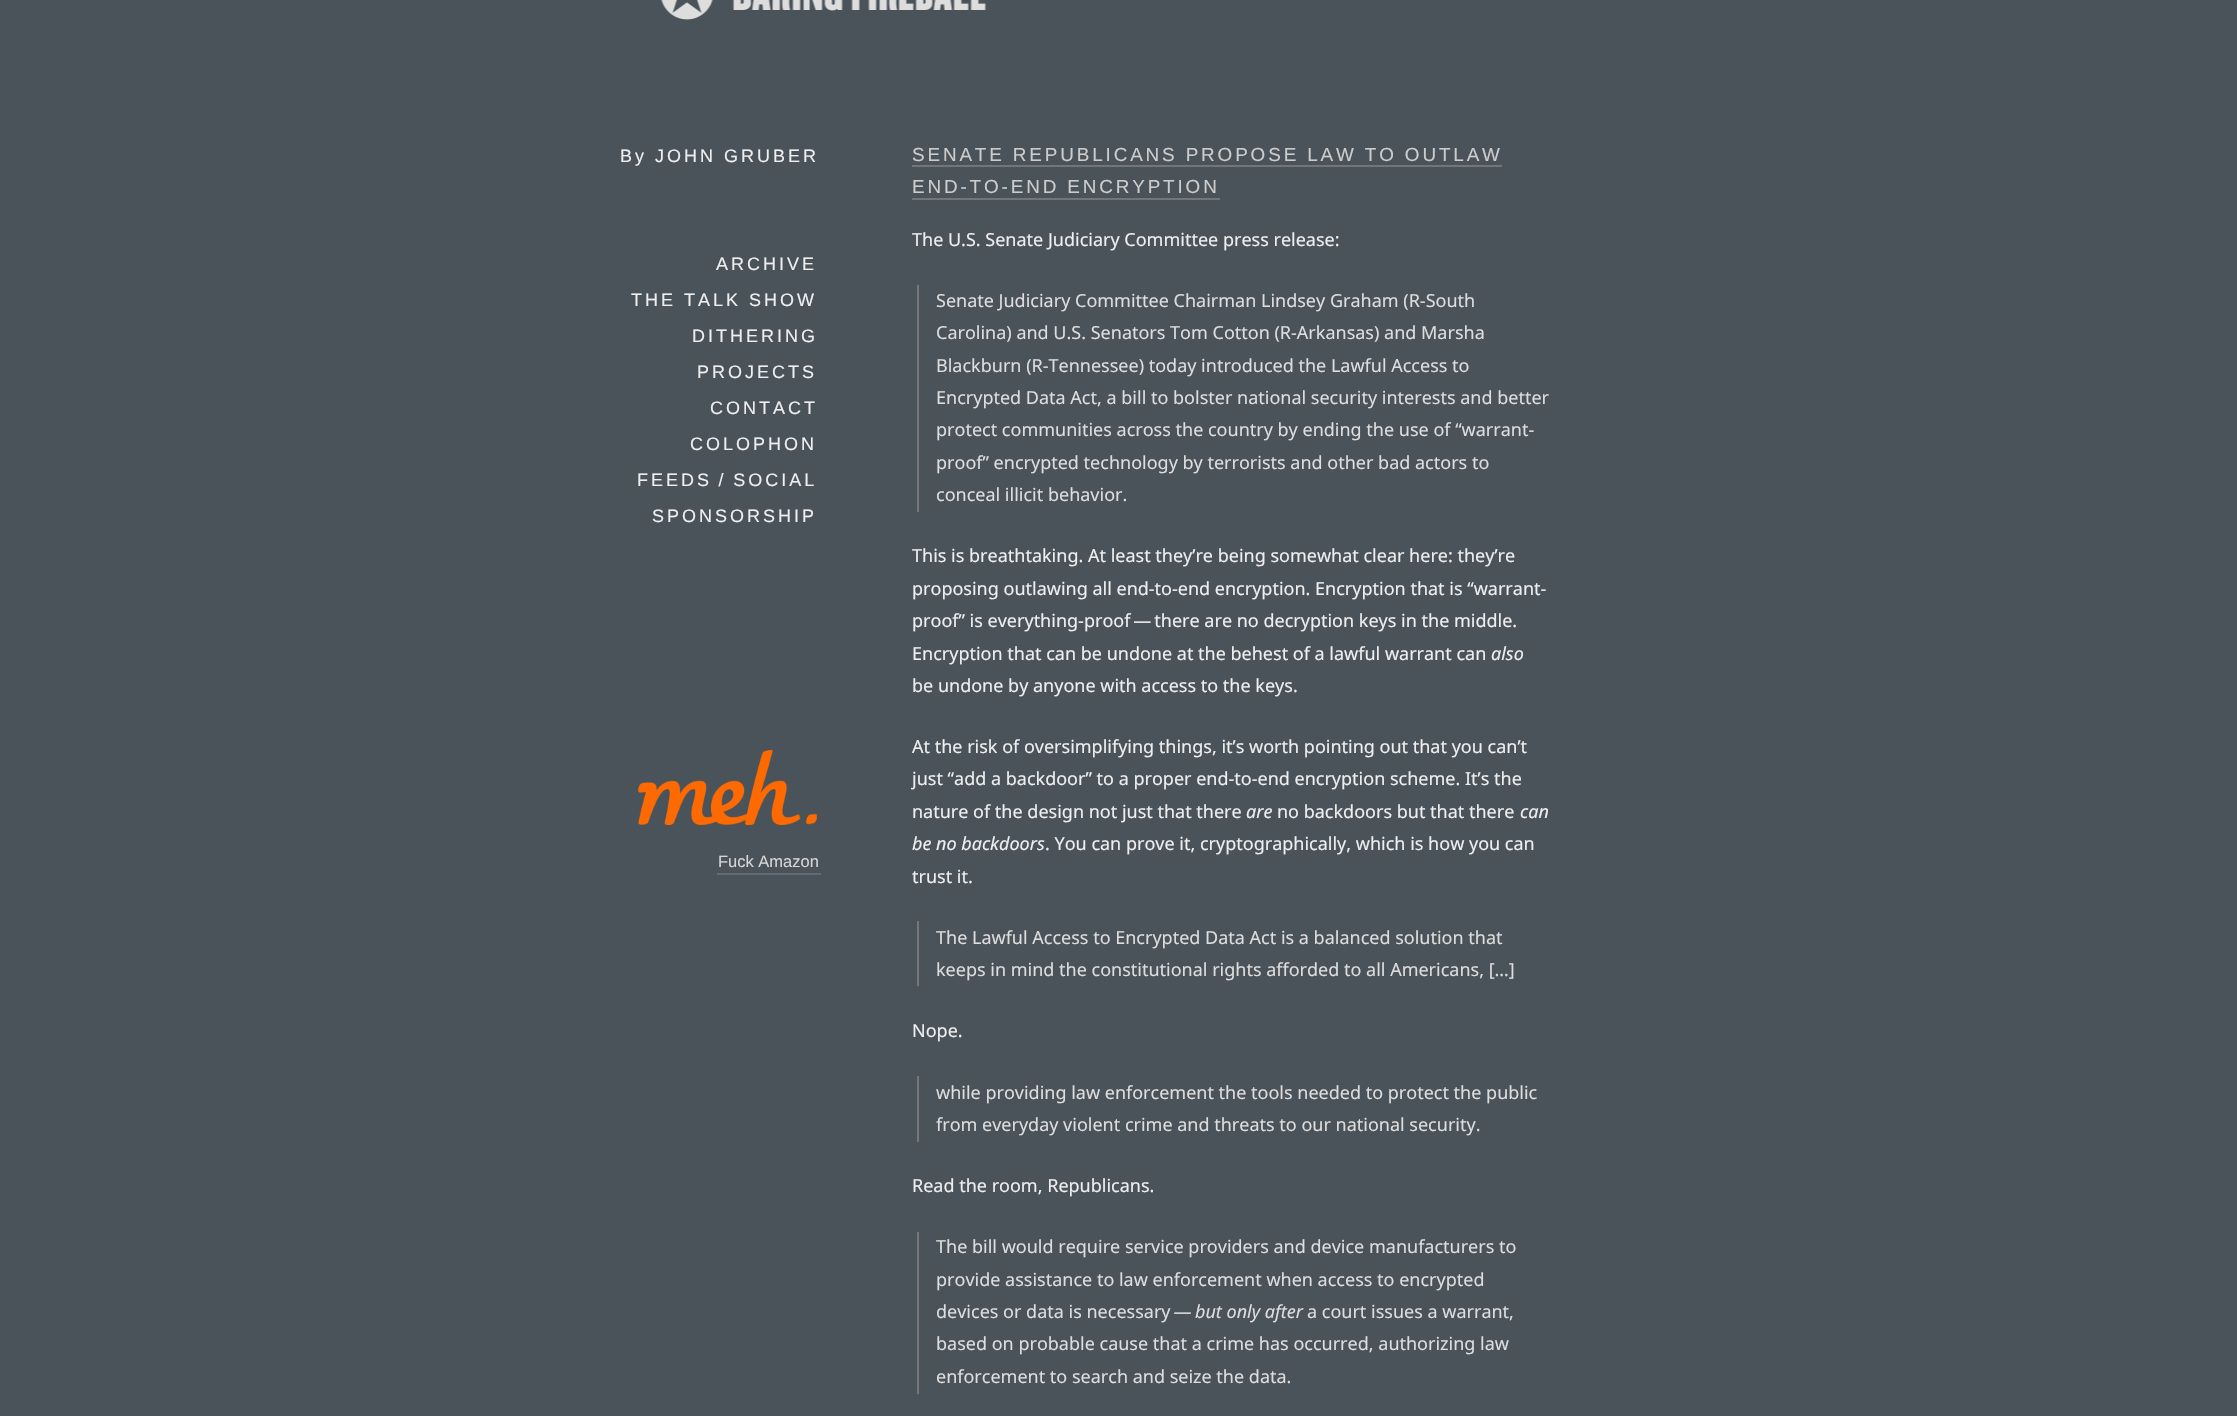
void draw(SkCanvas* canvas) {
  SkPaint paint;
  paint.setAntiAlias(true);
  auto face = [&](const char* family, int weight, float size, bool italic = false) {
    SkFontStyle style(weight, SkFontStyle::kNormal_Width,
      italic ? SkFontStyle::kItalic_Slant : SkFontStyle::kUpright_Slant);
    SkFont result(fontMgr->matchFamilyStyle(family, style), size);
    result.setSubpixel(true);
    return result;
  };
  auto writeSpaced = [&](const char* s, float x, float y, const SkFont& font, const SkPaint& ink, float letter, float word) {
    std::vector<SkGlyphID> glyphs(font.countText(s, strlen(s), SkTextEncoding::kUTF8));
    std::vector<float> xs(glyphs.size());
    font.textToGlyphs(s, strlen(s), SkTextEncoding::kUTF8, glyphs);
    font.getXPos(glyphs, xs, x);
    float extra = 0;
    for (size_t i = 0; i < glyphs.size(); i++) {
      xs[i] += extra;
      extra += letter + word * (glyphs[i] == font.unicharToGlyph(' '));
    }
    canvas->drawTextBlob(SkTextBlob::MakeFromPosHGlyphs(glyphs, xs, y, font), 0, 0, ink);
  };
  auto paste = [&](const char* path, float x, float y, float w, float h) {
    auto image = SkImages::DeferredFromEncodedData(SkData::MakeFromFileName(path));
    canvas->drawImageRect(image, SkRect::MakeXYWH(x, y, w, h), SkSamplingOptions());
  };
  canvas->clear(0xff4a525a);
  paste("img/1.png", 661, 0, 325, 20);
  paste("img/2.png", 638, 750, 179, 75);
  {
    const struct { float x, y, w, h; SkColor color; } items[] = {
      {717, 873, 104, 2, 0xff626a73},
      {912, 165, 590, 2, 0xff72767a},
      {912, 198, 308, 2, 0xff72767a},
      {917, 285, 2, 227, 0xff777777},
      {917, 921, 2, 65, 0xff777777},
      {917, 1076, 2, 66, 0xff777777},
      {917, 1232, 2, 162, 0xff777777},
    };
    for (auto [x, y, w, h, color] : items) {
      paint.setColor(color);
      canvas->drawRect(SkRect::MakeXYWH(x, y, w, h), paint);
    }
  }
  auto f0 = face("Liberation Sans", 400, 18);
  paint.setColor(0xffeeeeee);
  {
    const struct { const char* s; float x, y; } items[] = {
      {"By JOHN GRUBER", 620, 162},
      {"ARCHIVE", 716, 270},
      {"THE TALK SHOW", 631, 306},
      {"DITHERING", 692, 342},
      {"PROJECTS", 697, 378},
      {"CONTACT", 710, 414},
      {"COLOPHON", 690, 450},
      {"FEEDS / SOCIAL", 637, 486},
      {"SPONSORSHIP", 652, 522},
    };
    for (auto [s, x, y] : items) {
      writeSpaced(s, x, y, f0, paint, 3, 0);
    }
  }
  auto f1 = face("Liberation Sans", 400, 16.5f);
  paint.setColor(0xffd5d5d5);
  canvas->drawString("Fuck Amazon", 718, 867, f1, paint);
  auto f2 = face("Liberation Sans", 400, 18.9f);
  paint.setColor(0xffcccccc);
  writeSpaced("SENATE REPUBLICANS PROPOSE LAW TO OUTLAW", 912, 161, f2, paint, 2.85f, 0);
  writeSpaced("END-TO-END ENCRYPTION", 912, 193, f2, paint, 2.85f, 0);
  auto f3 = face("Noto Sans", 400, 18);
  paint.setColor(0xffeeeeee);
  canvas->drawString("The U.S. Senate Judiciary Committee press release:", 912, 246, f3, paint);
  paint.setColor(0xffdddddd);
  {
    const struct { const char* s; float x, y; } items[] = {
      {"Senate Judiciary Committee Chairman Lindsey Graham (R-South", 936, 307},
      {"Carolina) and U.S. Senators Tom Cotton (R-Arkansas) and Marsha", 936, 339},
      {"Blackburn (R-Tennessee) today introduced the Lawful Access to", 936, 372},
      {"Encrypted Data Act, a bill to bolster national security interests and better", 936, 404},
      {"protect communities across the country by ending the use of “warrant-", 936, 436},
      {"proof” encrypted technology by terrorists and other bad actors to", 936, 469},
      {"conceal illicit behavior.", 936, 501},
    };
    for (auto [s, x, y] : items) {
      canvas->drawString(s, x, y, f3, paint);
    }
  }
  paint.setColor(0xffeeeeee);
  {
    const struct { const char* s; float x, y; } items[] = {
      {"This is breathtaking. At least they’re being somewhat clear here: they’re", 912, 562},
      {"proposing outlawing all end-to-end encryption. Encryption that is “warrant-", 912, 595},
      {"proof” is everything-proof — there are no decryption keys in the middle.", 912, 627},
      {"Encryption that can be undone at the behest of a lawful warrant can", 912, 660},
    };
    for (auto [s, x, y] : items) {
      canvas->drawString(s, x, y, f3, paint);
    }
  }
  auto f4 = face("Noto Sans", 400, 18, true);
  canvas->drawString("also", 1491, 660, f4, paint);
  {
    const struct { const char* s; float x, y; } items[] = {
      {"be undone by anyone with access to the keys.", 912, 692},
      {"At the risk of oversimplifying things, it’s worth pointing out that you can’t", 912, 753},
      {"just “add a backdoor” to a proper end-to-end encryption scheme. It’s the", 912, 785},
      {"nature of the design not just that there", 912, 818},
    };
    for (auto [s, x, y] : items) {
      canvas->drawString(s, x, y, f3, paint);
    }
  }
  canvas->drawString("are", 1246, 818, f4, paint);
  canvas->drawString("no backdoors but that there", 1277, 818, f3, paint);
  canvas->drawString("can", 1520, 818, f4, paint);
  canvas->drawString("be no backdoors", 912, 850, f4, paint);
  canvas->drawString(". You can prove it, cryptographically, which is how you can", 1045, 850, f3, paint);
  canvas->drawString("trust it.", 912, 883, f3, paint);
  paint.setColor(0xffdddddd);
  canvas->drawString("The Lawful Access to Encrypted Data Act is a balanced solution that", 936, 944, f3, paint);
  canvas->drawString("keeps in mind the constitutional rights afforded to all Americans, […]", 936, 976, f3, paint);
  paint.setColor(0xffeeeeee);
  canvas->drawString("Nope.", 912, 1037, f3, paint);
  paint.setColor(0xffdddddd);
  canvas->drawString("while providing law enforcement the tools needed to protect the public", 936, 1099, f3, paint);
  canvas->drawString("from everyday violent crime and threats to our national security.", 936, 1131, f3, paint);
  paint.setColor(0xffeeeeee);
  canvas->drawString("Read the room, Republicans.", 912, 1192, f3, paint);
  paint.setColor(0xffdddddd);
  {
    const struct { const char* s; float x, y; } items[] = {
      {"The bill would require service providers and device manufacturers to", 936, 1253},
      {"provide assistance to law enforcement when access to encrypted", 936, 1286},
      {"devices or data is necessary —", 936, 1318},
    };
    for (auto [s, x, y] : items) {
      canvas->drawString(s, x, y, f3, paint);
    }
  }
  canvas->drawString("but only after", 1195, 1318, f4, paint);
  {
    const struct { const char* s; float x, y; } items[] = {
      {"a court issues a warrant,", 1307, 1318},
      {"based on probable cause that a crime has occurred, authorizing law", 936, 1350},
      {"enforcement to search and seize the data.", 936, 1383},
    };
    for (auto [s, x, y] : items) {
      canvas->drawString(s, x, y, f3, paint);
    }
  }
}
